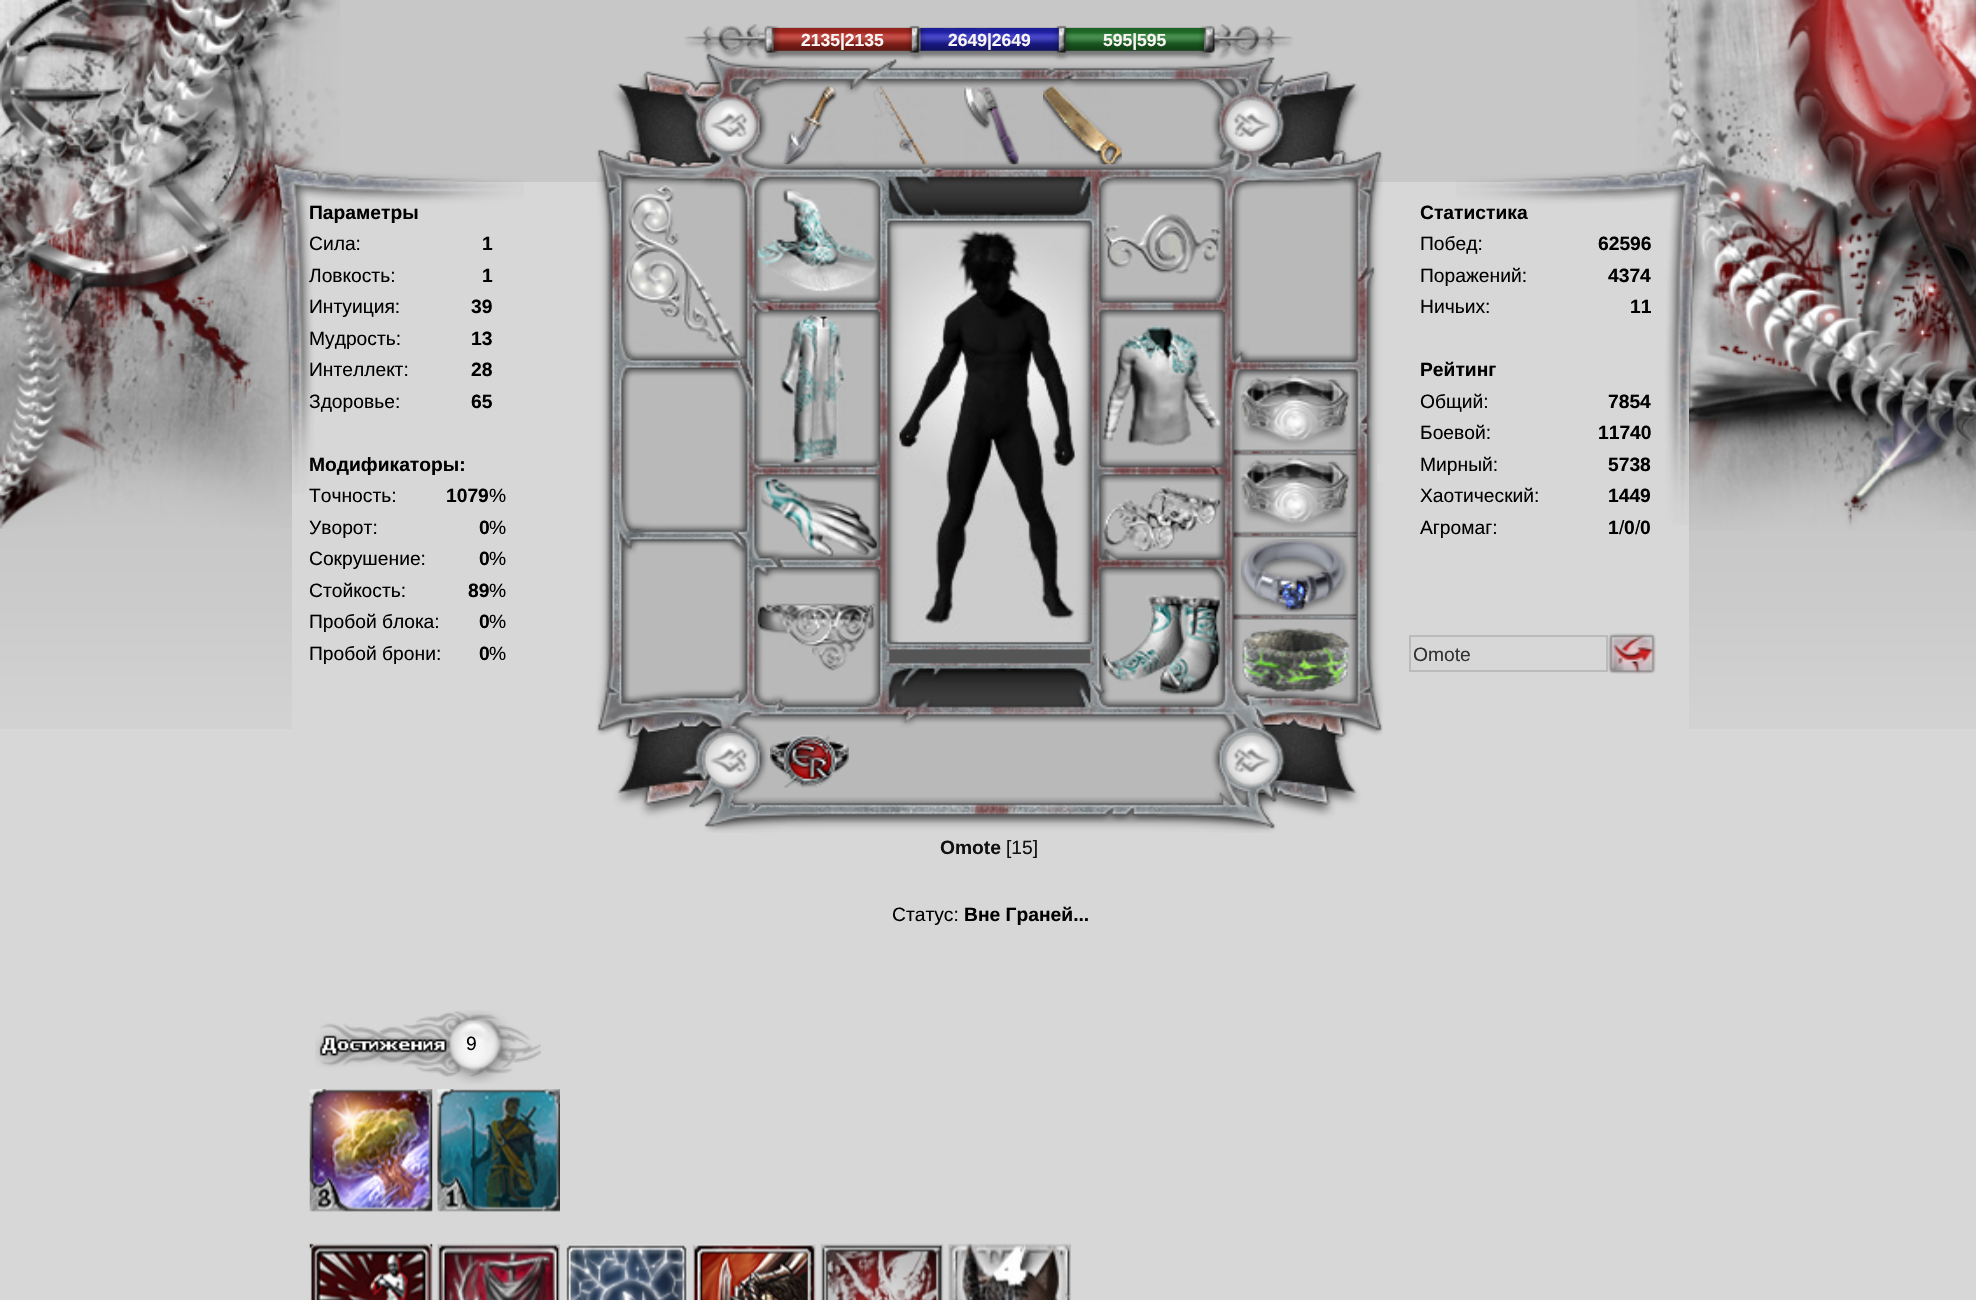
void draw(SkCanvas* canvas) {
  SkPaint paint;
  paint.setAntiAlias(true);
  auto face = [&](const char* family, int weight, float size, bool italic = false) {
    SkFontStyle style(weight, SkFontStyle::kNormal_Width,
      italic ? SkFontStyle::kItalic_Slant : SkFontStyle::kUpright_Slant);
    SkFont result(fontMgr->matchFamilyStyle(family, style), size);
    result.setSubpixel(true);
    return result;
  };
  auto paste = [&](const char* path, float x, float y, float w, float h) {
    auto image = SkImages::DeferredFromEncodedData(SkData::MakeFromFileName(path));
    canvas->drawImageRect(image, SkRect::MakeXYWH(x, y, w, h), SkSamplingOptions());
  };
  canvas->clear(0xffd7d7d7);
  paste("img/1.png", 0, 0, 1976, 729);
  paste("img/2.png", 0, 0, 340, 529);
  paste("img/7.png", 1637, 0, 339, 531);
  {
    const struct { float x, y, w, h; SkColor color; } items[] = {
      {292, 182, 1397, 547, 0xffd7d7d7},
      {725, 75, 527, 734, 0xffb9b9b9},
      {622, 173, 740, 533, 0xffb9b9b9},
    };
    for (auto [x, y, w, h, color] : items) {
      paint.setColor(color);
      canvas->drawRect(SkRect::MakeXYWH(x, y, w, h), paint);
    }
  }
  paste("img/32.png", 890, 222, 201, 421);
  paste("img/9.png", 596, 53, 787, 780);
  paste("img/3.png", 684, 24, 609, 37);
  paste("img/4.png", 773, 28, 139, 23);
  paste("img/5.png", 920, 28, 139, 23);
  paste("img/6.png", 1065, 28, 139, 23);
  paste("img/8.png", 272, 161, 252, 333);
  paste("img/10.png", 703, 97, 55, 55);
  paste("img/11.png", 782, 86, 55, 79);
  paste("img/12.png", 873, 86, 55, 79);
  paste("img/13.png", 964, 86, 55, 79);
  paste("img/14.png", 1043, 86, 79, 79);
  paste("img/15.png", 1223, 97, 55, 55);
  paste("img/16.png", 624, 185, 118, 171);
  paste("img/17.png", 757, 188, 120, 105);
  paste("img/18.png", 1103, 212, 119, 63);
  paste("img/19.png", 779, 315, 67, 149);
  paste("img/20.png", 1102, 325, 120, 122);
  paste("img/21.png", 1240, 374, 110, 73);
  paste("img/22.png", 761, 477, 116, 80);
  paste("img/23.png", 1102, 486, 119, 66);
  paste("img/24.png", 1240, 457, 110, 72);
  paste("img/25.png", 1240, 539, 109, 74);
  paste("img/26.png", 757, 603, 119, 68);
  paste("img/27.png", 1102, 594, 120, 102);
  paste("img/28.png", 1241, 628, 109, 64);
  paste("img/29.png", 703, 733, 55, 55);
  paste("img/30.png", 770, 735, 79, 53);
  paste("img/31.png", 1224, 733, 54, 54);
  paste("img/33.png", 1456, 161, 252, 364);
  paint.setStroke(true);
  paint.setStrokeWidth(2);
  paint.setColor(0xffbbbbbb);
  canvas->drawRect(SkRect::MakeXYWH(1410, 636, 197, 35), paint);
  paste("img/34.png", 1608, 633, 48, 41);
  paste("img/35.png", 315, 1010, 226, 74);
  paste("img/36.png", 309, 1089, 124, 123);
  paste("img/37.png", 437, 1089, 123, 123);
  paste("img/38.png", 309, 1243, 124, 57);
  paste("img/39.png", 437, 1243, 123, 57);
  paste("img/40.png", 565, 1244, 123, 56);
  paste("img/41.png", 693, 1244, 123, 56);
  paste("img/42.png", 820, 1243, 124, 57);
  paste("img/43.png", 948, 1243, 123, 57);
  auto f0 = face("Liberation Sans", 700, 17.5f);
  paint.setStroke(false);
  paint.setColor(0xfffaf5f5);
  {
    const struct { const char* s; float x, y; } items[] = {
      {"2135|2135", 801, 46},
      {"2649|2649", 948, 46},
      {"595|595", 1103, 46},
    };
    for (auto [s, x, y] : items) {
      canvas->drawString(s, x, y, f0, paint);
    }
  }
  auto f1 = face("Liberation Sans", 700, 19.25f);
  paint.setColor(0xff000000);
  canvas->drawString("Параметры", 309, 219, f1, paint);
  auto f2 = face("Liberation Sans", 400, 19.25f);
  canvas->drawString("Сила:", 309, 250, f2, paint);
  canvas->drawString("1", 482, 250, f1, paint);
  canvas->drawString("Ловкость:", 309, 282, f2, paint);
  canvas->drawString("1", 482, 282, f1, paint);
  canvas->drawString("Интуиция:", 309, 313, f2, paint);
  canvas->drawString("39", 471, 313, f1, paint);
  canvas->drawString("Мудрость:", 309, 345, f2, paint);
  canvas->drawString("13", 471, 345, f1, paint);
  canvas->drawString("Интеллект:", 309, 376, f2, paint);
  canvas->drawString("28", 471, 376, f1, paint);
  canvas->drawString("Здоровье:", 309, 408, f2, paint);
  canvas->drawString("65", 471, 408, f1, paint);
  canvas->drawString("Модификаторы:", 309, 471, f1, paint);
  canvas->drawString("Точность:", 309, 502, f2, paint);
  canvas->drawString("1079", 446, 502, f1, paint);
  canvas->drawString("%", 489, 502, f2, paint);
  canvas->drawString("Уворот:", 309, 534, f2, paint);
  canvas->drawString("0", 479, 534, f1, paint);
  canvas->drawString("%", 489, 534, f2, paint);
  canvas->drawString("Сокрушение:", 309, 565, f2, paint);
  canvas->drawString("0", 479, 565, f1, paint);
  canvas->drawString("%", 489, 565, f2, paint);
  canvas->drawString("Стойкость:", 309, 597, f2, paint);
  canvas->drawString("89", 468, 597, f1, paint);
  canvas->drawString("%", 489, 597, f2, paint);
  canvas->drawString("Пробой блока:", 309, 628, f2, paint);
  canvas->drawString("0", 479, 628, f1, paint);
  canvas->drawString("%", 489, 628, f2, paint);
  canvas->drawString("Пробой брони:", 309, 660, f2, paint);
  canvas->drawString("0", 479, 660, f1, paint);
  canvas->drawString("%", 489, 660, f2, paint);
  canvas->drawString("Статистика", 1420, 219, f1, paint);
  canvas->drawString("Побед:", 1420, 250, f2, paint);
  canvas->drawString("62596", 1598, 250, f1, paint);
  canvas->drawString("Поражений:", 1420, 282, f2, paint);
  canvas->drawString("4374", 1608, 282, f1, paint);
  canvas->drawString("Ничьих:", 1420, 313, f2, paint);
  canvas->drawString("11", 1630, 313, f1, paint);
  canvas->drawString("Рейтинг", 1420, 376, f1, paint);
  canvas->drawString("Общий:", 1420, 408, f2, paint);
  canvas->drawString("7854", 1608, 408, f1, paint);
  canvas->drawString("Боевой:", 1420, 439, f2, paint);
  canvas->drawString("11740", 1598, 439, f1, paint);
  canvas->drawString("Мирный:", 1420, 471, f2, paint);
  canvas->drawString("5738", 1608, 471, f1, paint);
  canvas->drawString("Хаотический:", 1420, 502, f2, paint);
  canvas->drawString("1449", 1608, 502, f1, paint);
  canvas->drawString("Агромаг:", 1420, 534, f2, paint);
  canvas->drawString("1 0 0", 1608, 534, f1, paint);
  canvas->drawString("/", 1619, 534, f2, paint);
  canvas->drawString("/", 1635, 534, f2, paint);
  paint.setColor(0xff333333);
  canvas->drawString("Omote", 1413, 661, f2, paint);
  paint.setColor(0xff000000);
  canvas->drawString("Статус:", 892, 921, f2, paint);
  canvas->drawString("Вне Граней...", 964, 921, f1, paint);
  canvas->drawString("9", 466, 1050, f2, paint);
  paint.setColor(0xff111111);
  canvas->drawString("Omote", 940, 854, f1, paint);
  canvas->drawString("[15]", 1006, 854, f2, paint);
}
